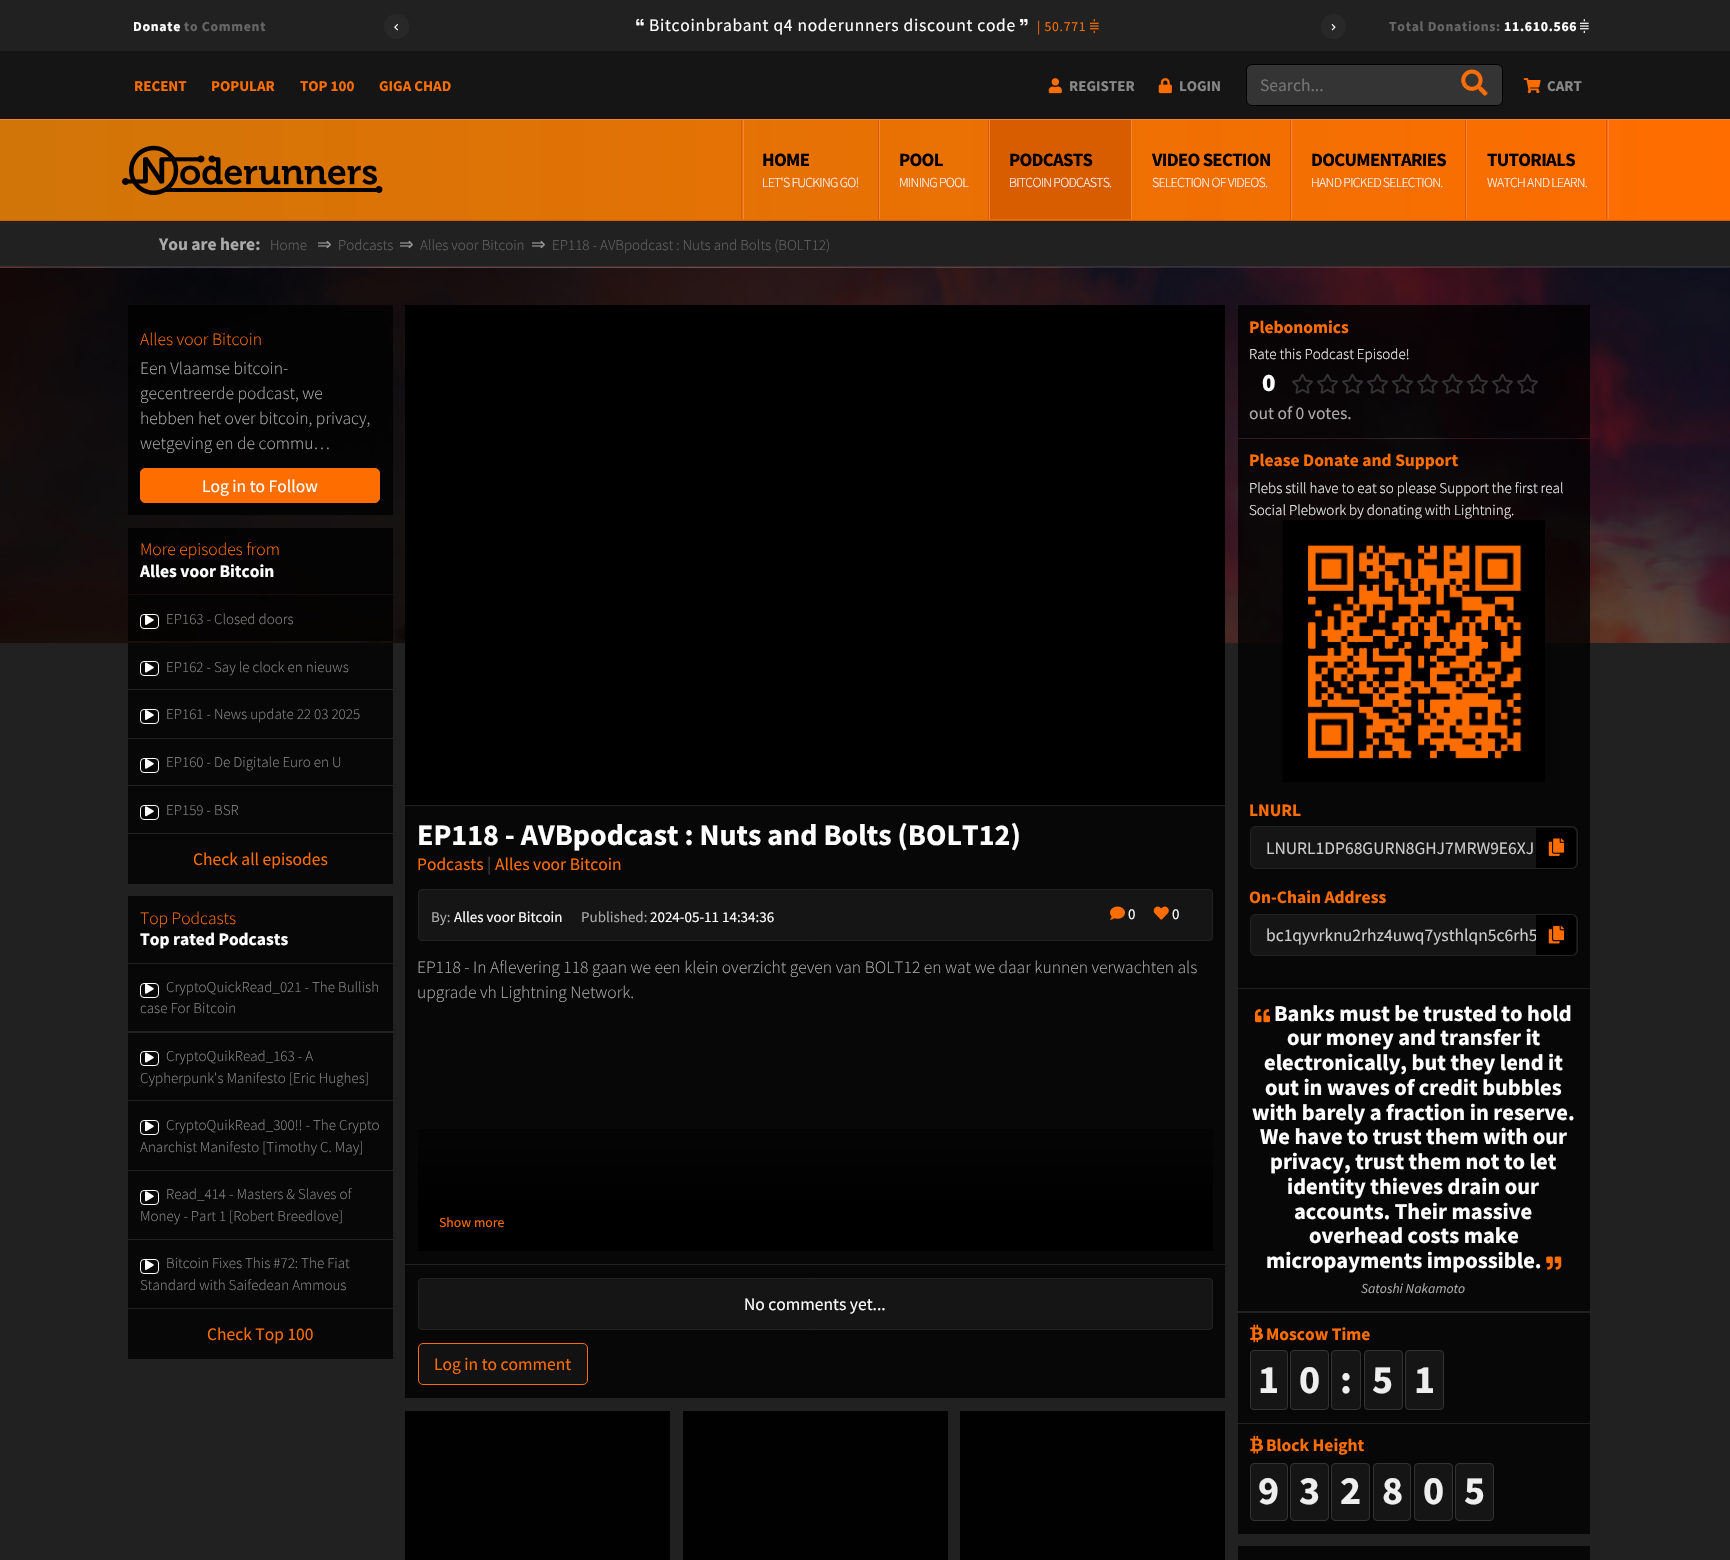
void draw(SkCanvas* canvas) {
  SkPaint paint;
  paint.setAntiAlias(true);
  auto face = [&](const char* family, int weight, float size, bool italic = false) {
    SkFontStyle style(weight, SkFontStyle::kNormal_Width,
      italic ? SkFontStyle::kItalic_Slant : SkFontStyle::kUpright_Slant);
    SkFont result(fontMgr->matchFamilyStyle(family, style), size);
    result.setSubpixel(true);
    return result;
  };
  auto writeSpaced = [&](const char* s, float x, float y, const SkFont& font, const SkPaint& ink, float letter, float word) {
    std::vector<SkGlyphID> glyphs(font.countText(s, strlen(s), SkTextEncoding::kUTF8));
    std::vector<float> xs(glyphs.size());
    font.textToGlyphs(s, strlen(s), SkTextEncoding::kUTF8, glyphs);
    font.getXPos(glyphs, xs, x);
    float extra = 0;
    for (size_t i = 0; i < glyphs.size(); i++) {
      xs[i] += extra;
      extra += letter + word * (glyphs[i] == font.unicharToGlyph(' '));
    }
    canvas->drawTextBlob(SkTextBlob::MakeFromPosHGlyphs(glyphs, xs, y, font), 0, 0, ink);
  };
  auto paste = [&](const char* path, float x, float y, float w, float h) {
    auto image = SkImages::DeferredFromEncodedData(SkData::MakeFromFileName(path));
    canvas->drawImageRect(image, SkRect::MakeXYWH(x, y, w, h), SkSamplingOptions());
  };
  auto shape = [&](const char* data, bool evenOdd = false) {
    SkPath result = *SkParsePath::FromSVGString(data);
    if (evenOdd) result.setFillType(SkPathFillType::kEvenOdd);
    return result;
  };
  canvas->clear(0xff212121);
  paint.setColor(0xff282828);
  canvas->drawCircle(396.5f, 26.5f, 12.5f, paint);
  paste("img/1.png", 394, 24, 4, 7);
  paste("img/2.png", 636, 18, 8, 8);
  paste("img/3.png", 1020, 18, 8, 8);
  paste("img/4.png", 1090, 19, 9, 14);
  canvas->drawCircle(1333.5f, 26.5f, 12.5f, paint);
  paste("img/5.png", 1331, 24, 5, 7);
  paste("img/6.png", 1580, 19, 9, 14);
  paint.setColor(0xff151515);
  canvas->drawRect(SkRect::MakeXYWH(0, 51, 1730, 68), paint);
  paste("img/7.png", 1048, 78, 14, 16);
  paste("img/8.png", 1158, 78, 14, 16);
  paint.setColor(0xff343434);
  canvas->drawRoundRect(SkRect::MakeXYWH(1246.5f, 64.5f, 256, 41), 5.5f, 5.5f, paint);
  paint.setStroke(true);
  paint.setStrokeWidth(1);
  paint.setColor(0xff000000);
  canvas->drawRoundRect(SkRect::MakeXYWH(1246.5f, 64.5f, 256, 41), 5.5f, 5.5f, paint);
  paste("img/9.png", 1461, 69, 27, 27);
  paste("img/10.png", 1523, 78, 18, 16);
  paint.setStroke(false);
  {
    const SkColor colors[] = {0xffd17508, 0xffff6d00};
    const float stops[] = {0, 1};
    const SkPoint ends[] = {{0, 170}, {1730, 170}};
    paint.setShader(SkGradientShader::MakeLinear(ends, colors, stops, 2, SkTileMode::kClamp));
    paint.setAlpha(255);
  }
  canvas->drawRect(SkRect::MakeXYWH(0, 120, 1730, 100), paint);
  paint.setShader(nullptr);
  paint.setColor(0xffff8235);
  canvas->drawRect(SkRect::MakeXYWH(0, 119, 1730, 1), paint);
  paint.setColor(0xffd85d00);
  canvas->drawRect(SkRect::MakeXYWH(0, 220, 1730, 1), paint);
  paste("img/11.png", 122, 145, 261, 50);
  {
    const struct { float x, y, w, h; SkColor color; } items[] = {
      {1608, 120, 1, 99, 0xffff8235},
      {741, 120, 1, 99, 0xffd85d00},
      {878, 120, 1, 99, 0xffd85d00},
      {743, 120, 1, 99, 0xffff8235},
      {988, 120, 1, 99, 0xffd85d00},
      {879, 120, 1, 99, 0xffff8235},
      {990, 120, 141, 99, 0xffd85d00},
      {989, 120, 1, 99, 0xffff8235},
      {1290, 120, 1, 99, 0xffd85d00},
      {1131, 120, 1, 99, 0xffff8235},
      {1465, 120, 1, 99, 0xffd85d00},
      {1291, 120, 1, 99, 0xffff8235},
      {1606, 120, 1, 99, 0xffd85d00},
      {1466, 120, 1, 99, 0xffff8235},
      {0, 266, 1730, 1, 0xff333333},
      {0, 268, 1730, 375, 0xff000000},
    };
    for (auto [x, y, w, h, color] : items) {
      paint.setColor(color);
      canvas->drawRect(SkRect::MakeXYWH(x, y, w, h), paint);
    }
  }
  paste("img/12.png", 0, 267, 1730, 376);
  {
    const SkColor colors[] = {0xc4000000, 0x00000000};
    const float stops[] = {0.24f, 1};
    const SkPoint ends[] = {{0, 455}, {1730, 455}};
    paint.setShader(SkGradientShader::MakeLinear(ends, colors, stops, 2, SkTileMode::kClamp));
    paint.setAlpha(255);
  }
  canvas->drawRect(SkRect::MakeXYWH(0, 268, 1680, 375), paint);
  paint.setShader(nullptr);
  paint.setColor(0xcc000000);
  canvas->drawRect(SkRect::MakeXYWH(128, 305, 265, 210), paint);
  paint.setColor(0xfffd6d00);
  canvas->drawRoundRect(SkRect::MakeXYWH(140.5f, 468.5f, 239, 34), 4.5f, 4.5f, paint);
  paint.setStroke(true);
  canvas->drawRoundRect(SkRect::MakeXYWH(140.5f, 468.5f, 239, 34), 4.5f, 4.5f, paint);
  paint.setStroke(false);
  paint.setColor(0xcc000000);
  canvas->drawRect(SkRect::MakeXYWH(128, 528, 265, 66), paint);
  canvas->drawRect(SkRect::MakeXYWH(128, 595, 265, 46), paint);
  paint.setStroke(true);
  paint.setColor(0xffffffff);
  canvas->drawRoundRect(SkRect::MakeXYWH(140.5f, 614.5f, 18, 14), 3.5f, 3.5f, paint);
  paste("img/13.png", 145, 615, 9, 10);
  paint.setStroke(false);
  paint.setColor(0xff070707);
  canvas->drawRect(SkRect::MakeXYWH(128, 643, 265, 46), paint);
  paint.setStroke(true);
  paint.setColor(0xffffffff);
  canvas->drawRoundRect(SkRect::MakeXYWH(140.5f, 661.5f, 18, 14), 3.5f, 3.5f, paint);
  paste("img/14.png", 145, 662, 9, 11);
  paint.setStroke(false);
  paint.setColor(0xff070707);
  canvas->drawRect(SkRect::MakeXYWH(128, 690, 265, 48), paint);
  paint.setStroke(true);
  paint.setColor(0xffffffff);
  canvas->drawRoundRect(SkRect::MakeXYWH(140.5f, 709.5f, 18, 14), 3.5f, 3.5f, paint);
  paste("img/15.png", 145, 710, 9, 10);
  paint.setStroke(false);
  paint.setColor(0xff070707);
  canvas->drawRect(SkRect::MakeXYWH(128, 739, 265, 46), paint);
  paint.setStroke(true);
  paint.setColor(0xffffffff);
  canvas->drawRoundRect(SkRect::MakeXYWH(140.5f, 758.5f, 18, 14), 3.5f, 3.5f, paint);
  paste("img/16.png", 145, 759, 9, 10);
  paint.setStroke(false);
  paint.setColor(0xff070707);
  canvas->drawRect(SkRect::MakeXYWH(128, 786, 265, 47), paint);
  paint.setStroke(true);
  paint.setColor(0xffffffff);
  canvas->drawRoundRect(SkRect::MakeXYWH(140.5f, 805.5f, 18, 14), 3.5f, 3.5f, paint);
  paste("img/17.png", 145, 806, 9, 11);
  paint.setStroke(false);
  {
    const struct { float x, y, w, h; SkColor color; } items[] = {
      {128, 834, 265, 50, 0xff070707},
      {128, 896, 265, 67, 0xff070707},
      {128, 964, 265, 67, 0xff070707},
    };
    for (auto [x, y, w, h, color] : items) {
      paint.setColor(color);
      canvas->drawRect(SkRect::MakeXYWH(x, y, w, h), paint);
    }
  }
  paint.setStroke(true);
  paint.setColor(0xffffffff);
  canvas->drawRoundRect(SkRect::MakeXYWH(140.5f, 983.5f, 18, 14), 3.5f, 3.5f, paint);
  paste("img/16.png", 145, 984, 9, 10);
  paint.setStroke(false);
  paint.setColor(0xff070707);
  canvas->drawRect(SkRect::MakeXYWH(128, 1033, 265, 67), paint);
  paint.setStroke(true);
  paint.setColor(0xffffffff);
  canvas->drawRoundRect(SkRect::MakeXYWH(140.5f, 1051.5f, 18, 14), 3.5f, 3.5f, paint);
  paste("img/14.png", 145, 1052, 9, 11);
  paint.setStroke(false);
  paint.setColor(0xff070707);
  canvas->drawRect(SkRect::MakeXYWH(128, 1101, 265, 69), paint);
  paint.setStroke(true);
  paint.setColor(0xffffffff);
  canvas->drawRoundRect(SkRect::MakeXYWH(140.5f, 1120.5f, 18, 14), 3.5f, 3.5f, paint);
  paste("img/17.png", 145, 1121, 9, 11);
  paint.setStroke(false);
  paint.setColor(0xff070707);
  canvas->drawRect(SkRect::MakeXYWH(128, 1171, 265, 68), paint);
  paint.setStroke(true);
  paint.setColor(0xffffffff);
  canvas->drawRoundRect(SkRect::MakeXYWH(140.5f, 1190.5f, 18, 14), 3.5f, 3.5f, paint);
  paste("img/17.png", 145, 1191, 9, 11);
  paint.setStroke(false);
  paint.setColor(0xff070707);
  canvas->drawRect(SkRect::MakeXYWH(128, 1240, 265, 68), paint);
  paint.setStroke(true);
  paint.setColor(0xffffffff);
  canvas->drawRoundRect(SkRect::MakeXYWH(140.5f, 1259.5f, 18, 14), 3.5f, 3.5f, paint);
  paste("img/15.png", 145, 1260, 9, 10);
  paint.setStroke(false);
  {
    const struct { float x, y, w, h; SkColor color; } items[] = {
      {128, 1309, 265, 50, 0xff070707},
      {405, 305, 820, 500, 0xff000000},
      {405, 806, 820, 458, 0xff070707},
    };
    for (auto [x, y, w, h, color] : items) {
      paint.setColor(color);
      canvas->drawRect(SkRect::MakeXYWH(x, y, w, h), paint);
    }
  }
  paint.setColor(0xff151515);
  canvas->drawRoundRect(SkRect::MakeXYWH(418.5f, 889.5f, 794, 51), 3.5f, 3.5f, paint);
  paint.setStroke(true);
  paint.setColor(0xff222222);
  canvas->drawRoundRect(SkRect::MakeXYWH(418.5f, 889.5f, 794, 51), 3.5f, 3.5f, paint);
  paste("img/18.png", 1110, 906, 15, 14);
  paste("img/19.png", 1153, 906, 16, 14);
  paint.setStroke(false);
  {
    const SkColor colors[] = {0xff000000, 0xff070707};
    const float stops[] = {0.18f, 0.74f};
    const SkPoint ends[] = {{815, 1251}, {815, 1026}};
    paint.setShader(SkGradientShader::MakeLinear(ends, colors, stops, 2, SkTileMode::kClamp));
    paint.setAlpha(255);
  }
  canvas->drawRect(SkRect::MakeXYWH(418, 1129, 795, 122), paint);
  paint.setShader(nullptr);
  paint.setColor(0xff070707);
  canvas->drawRect(SkRect::MakeXYWH(405, 1265, 820, 133), paint);
  paint.setColor(0xff151515);
  canvas->drawRoundRect(SkRect::MakeXYWH(418.5f, 1278.5f, 794, 51), 3.5f, 3.5f, paint);
  paint.setStroke(true);
  paint.setColor(0xff222222);
  canvas->drawRoundRect(SkRect::MakeXYWH(418.5f, 1278.5f, 794, 51), 3.5f, 3.5f, paint);
  paint.setStroke(false);
  paint.setColor(0xff121212);
  canvas->drawRoundRect(SkRect::MakeXYWH(418.5f, 1343.5f, 169, 41), 4.5f, 4.5f, paint);
  paint.setStroke(true);
  paint.setColor(0xfffd6d00);
  canvas->drawRoundRect(SkRect::MakeXYWH(418.5f, 1343.5f, 169, 41), 4.5f, 4.5f, paint);
  paint.setStroke(false);
  {
    const struct { float x, y, w, h; SkColor color; } items[] = {
      {405, 1411, 265, 149, 0xff010101},
      {683, 1411, 265, 149, 0xff010101},
      {960, 1411, 265, 149, 0xff010101},
      {1238, 305, 352, 133, 0xcc000000},
    };
    for (auto [x, y, w, h, color] : items) {
      paint.setColor(color);
      canvas->drawRect(SkRect::MakeXYWH(x, y, w, h), paint);
    }
  }
  paste("img/20.png", 1292, 373, 21, 21);
  paste("img/21.png", 1317, 373, 21, 21);
  paste("img/22.png", 1342, 373, 21, 21);
  paste("img/23.png", 1367, 373, 21, 21);
  paste("img/24.png", 1392, 373, 21, 21);
  paste("img/25.png", 1417, 373, 21, 21);
  paste("img/26.png", 1442, 373, 21, 21);
  paste("img/27.png", 1467, 373, 21, 21);
  paste("img/28.png", 1492, 373, 21, 21);
  paste("img/29.png", 1517, 373, 21, 21);
  canvas->drawRect(SkRect::MakeXYWH(1238, 439, 352, 549), paint);
  paste("img/30.png", 1282, 520, 263, 262);
  paint.setColor(0xff151515);
  canvas->drawRoundRect(SkRect::MakeXYWH(1250.5f, 826.5f, 327, 42), 5.5f, 5.5f, paint);
  paint.setStroke(true);
  paint.setColor(0xff222222);
  canvas->drawRoundRect(SkRect::MakeXYWH(1250.5f, 826.5f, 327, 42), 5.5f, 5.5f, paint);
  paint.setStroke(false);
  paint.setColor(0xff000000);
  canvas->drawPath(shape("M1536 828H1571C1574 828 1576 830 1576 833V863C1576 866 1574 868 1571 868H1536Z"), paint);
  paste("img/31.png", 1548, 838, 17, 18);
  paint.setColor(0xff151515);
  canvas->drawRoundRect(SkRect::MakeXYWH(1250.5f, 914.5f, 327, 41), 5.5f, 5.5f, paint);
  paint.setStroke(true);
  paint.setColor(0xff222222);
  canvas->drawRoundRect(SkRect::MakeXYWH(1250.5f, 914.5f, 327, 41), 5.5f, 5.5f, paint);
  paint.setStroke(false);
  paint.setColor(0xff070707);
  canvas->drawRect(SkRect::MakeXYWH(1238, 989, 352, 322), paint);
  paste("img/33.png", 1255, 1009, 15, 14);
  paste("img/34.png", 1546, 1256, 16, 14);
  canvas->drawRect(SkRect::MakeXYWH(1238, 1313, 352, 110), paint);
  paste("img/35.png", 1250, 1324, 13, 19);
  paint.setColor(0xff151515);
  canvas->drawRoundRect(SkRect::MakeXYWH(1250.5f, 1350.5f, 37, 59), 3.5f, 3.5f, paint);
  paint.setStroke(true);
  paint.setColor(0xff333333);
  canvas->drawRoundRect(SkRect::MakeXYWH(1250.5f, 1350.5f, 37, 59), 3.5f, 3.5f, paint);
  paint.setStroke(false);
  paint.setColor(0xff151515);
  canvas->drawRoundRect(SkRect::MakeXYWH(1290.5f, 1350.5f, 38, 59), 3.5f, 3.5f, paint);
  paint.setStroke(true);
  paint.setColor(0xff333333);
  canvas->drawRoundRect(SkRect::MakeXYWH(1290.5f, 1350.5f, 38, 59), 3.5f, 3.5f, paint);
  paint.setStroke(false);
  paint.setColor(0xff151515);
  canvas->drawRoundRect(SkRect::MakeXYWH(1331.5f, 1350.5f, 29, 59), 3.5f, 3.5f, paint);
  paint.setStroke(true);
  paint.setColor(0xff333333);
  canvas->drawRoundRect(SkRect::MakeXYWH(1331.5f, 1350.5f, 29, 59), 3.5f, 3.5f, paint);
  paint.setStroke(false);
  paint.setColor(0xff151515);
  canvas->drawRoundRect(SkRect::MakeXYWH(1364.5f, 1350.5f, 38, 59), 3.5f, 3.5f, paint);
  paint.setStroke(true);
  paint.setColor(0xff333333);
  canvas->drawRoundRect(SkRect::MakeXYWH(1364.5f, 1350.5f, 38, 59), 3.5f, 3.5f, paint);
  paint.setStroke(false);
  paint.setColor(0xff151515);
  canvas->drawRoundRect(SkRect::MakeXYWH(1405.5f, 1350.5f, 38, 59), 3.5f, 3.5f, paint);
  paint.setStroke(true);
  paint.setColor(0xff333333);
  canvas->drawRoundRect(SkRect::MakeXYWH(1405.5f, 1350.5f, 38, 59), 3.5f, 3.5f, paint);
  paint.setStroke(false);
  paint.setColor(0xff070707);
  canvas->drawRect(SkRect::MakeXYWH(1238, 1424, 352, 110), paint);
  paste("img/36.png", 1250, 1435, 13, 19);
  paint.setColor(0xff151515);
  canvas->drawRoundRect(SkRect::MakeXYWH(1250.5f, 1463.5f, 37, 57), 3.5f, 3.5f, paint);
  paint.setStroke(true);
  paint.setColor(0xff333333);
  canvas->drawRoundRect(SkRect::MakeXYWH(1250.5f, 1463.5f, 37, 57), 3.5f, 3.5f, paint);
  paint.setStroke(false);
  paint.setColor(0xff151515);
  canvas->drawRoundRect(SkRect::MakeXYWH(1290.5f, 1463.5f, 38, 57), 3.5f, 3.5f, paint);
  paint.setStroke(true);
  paint.setColor(0xff333333);
  canvas->drawRoundRect(SkRect::MakeXYWH(1290.5f, 1463.5f, 38, 57), 3.5f, 3.5f, paint);
  paint.setStroke(false);
  paint.setColor(0xff151515);
  canvas->drawRoundRect(SkRect::MakeXYWH(1331.5f, 1463.5f, 38, 57), 3.5f, 3.5f, paint);
  paint.setStroke(true);
  paint.setColor(0xff333333);
  canvas->drawRoundRect(SkRect::MakeXYWH(1331.5f, 1463.5f, 38, 57), 3.5f, 3.5f, paint);
  paint.setStroke(false);
  paint.setColor(0xff151515);
  canvas->drawRoundRect(SkRect::MakeXYWH(1373.5f, 1463.5f, 37, 57), 3.5f, 3.5f, paint);
  paint.setStroke(true);
  paint.setColor(0xff333333);
  canvas->drawRoundRect(SkRect::MakeXYWH(1373.5f, 1463.5f, 37, 57), 3.5f, 3.5f, paint);
  paint.setStroke(false);
  paint.setColor(0xff151515);
  canvas->drawRoundRect(SkRect::MakeXYWH(1414.5f, 1463.5f, 38, 57), 3.5f, 3.5f, paint);
  paint.setStroke(true);
  paint.setColor(0xff333333);
  canvas->drawRoundRect(SkRect::MakeXYWH(1414.5f, 1463.5f, 38, 57), 3.5f, 3.5f, paint);
  paint.setStroke(false);
  paint.setColor(0xff151515);
  canvas->drawRoundRect(SkRect::MakeXYWH(1455.5f, 1463.5f, 38, 57), 3.5f, 3.5f, paint);
  paint.setStroke(true);
  paint.setColor(0xff333333);
  canvas->drawRoundRect(SkRect::MakeXYWH(1455.5f, 1463.5f, 38, 57), 3.5f, 3.5f, paint);
  paint.setStroke(false);
  paint.setColor(0xff070707);
  canvas->drawRect(SkRect::MakeXYWH(1238, 1546, 352, 14), paint);
  auto f0 = face("Source Sans Pro", 700, 13.75f);
  paint.setColor(0xffffffff);
  writeSpaced("Donate", 133, 31, f0, paint, 0.7f, 0);
  paint.setColor(0xff666666);
  writeSpaced("to Comment", 184, 31, f0, paint, 0.7f, 0);
  auto f1 = face("Source Sans Pro", 400, 17.5f);
  paint.setColor(0xffffffff);
  writeSpaced("Bitcoinbrabant q4 noderunners discount code", 649, 31, f1, paint, 0.7f, 0);
  auto f2 = face("Source Sans Pro", 400, 13.75f);
  paint.setColor(0xfffd6d00);
  writeSpaced("| 50.771", 1037, 31, f2, paint, 0.7f, 0);
  paint.setColor(0xff666666);
  writeSpaced("Total Donations:", 1389, 31, f0, paint, 0.7f, 0);
  paint.setColor(0xffffffff);
  writeSpaced("11.610.566", 1504, 31, f0, paint, 0.7f, 0);
  auto f3 = face("Source Sans Pro", 700, 15);
  paint.setColor(0xfffd6d00);
  {
    const struct { const char* s; float x, y; } items[] = {
      {"RECENT", 134, 91},
      {"POPULAR", 211, 91},
      {"TOP 100", 300, 91},
      {"GIGA CHAD", 379, 91},
    };
    for (auto [s, x, y] : items) {
      canvas->drawString(s, x, y, f3, paint);
    }
  }
  paint.setColor(0xff888888);
  canvas->drawString("REGISTER", 1069, 91, f3, paint);
  canvas->drawString("LOGIN", 1179, 91, f3, paint);
  paint.setColor(0xff757575);
  canvas->drawString("Search...", 1260, 91, f1, paint);
  paint.setColor(0xff888888);
  canvas->drawString("CART", 1547, 91, f3, paint);
  auto f4 = face("Source Sans Pro", 700, 18.75f);
  paint.setColor(0xff000000);
  writeSpaced("HOME", 762, 166, f4, paint, -0.7f, 0);
  auto f5 = face("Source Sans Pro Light", 300, 13.75f);
  paint.setColor(0xffffffff);
  writeSpaced("LET'S FUCKING GO!", 762, 187, f5, paint, -0.7f, 0);
  paint.setColor(0xff000000);
  writeSpaced("POOL", 899, 166, f4, paint, -0.7f, 0);
  paint.setColor(0xffffffff);
  writeSpaced("MINING POOL", 899, 187, f5, paint, -0.7f, 0);
  paint.setColor(0xff000000);
  writeSpaced("PODCASTS", 1009, 166, f4, paint, -0.7f, 0);
  paint.setColor(0xffffffff);
  writeSpaced("BITCOIN PODCASTS.", 1009, 187, f5, paint, -0.7f, 0);
  paint.setColor(0xff000000);
  writeSpaced("VIDEO SECTION", 1152, 166, f4, paint, -0.7f, 0);
  paint.setColor(0xffffffff);
  writeSpaced("SELECTION OF VIDEOS.", 1152, 187, f5, paint, -0.7f, 0);
  paint.setColor(0xff000000);
  writeSpaced("DOCUMENTARIES", 1311, 166, f4, paint, -0.7f, 0);
  paint.setColor(0xffffffff);
  writeSpaced("HAND PICKED SELECTION.", 1311, 187, f5, paint, -0.7f, 0);
  paint.setColor(0xff000000);
  writeSpaced("TUTORIALS", 1487, 166, f4, paint, -0.7f, 0);
  paint.setColor(0xffffffff);
  writeSpaced("WATCH AND LEARN.", 1487, 187, f5, paint, -0.7f, 0);
  auto f6 = face("Source Sans Pro", 700, 17.5f);
  paint.setColor(0xffaaaaaa);
  canvas->drawString("You are here:", 159, 250, f6, paint);
  auto f7 = face("Source Sans Pro Light", 300, 15);
  paint.setColor(0xff666666);
  canvas->drawString("Home", 270, 250, f7, paint);
  auto f8 = face("DejaVu Sans", 400, 17.5f);
  paint.setColor(0xff999999);
  canvas->drawString("⇒", 317, 250, f8, paint);
  paint.setColor(0xff666666);
  canvas->drawString("Podcasts", 338, 250, f7, paint);
  paint.setColor(0xff999999);
  canvas->drawString("⇒", 399, 250, f8, paint);
  paint.setColor(0xff666666);
  canvas->drawString("Alles voor Bitcoin", 420, 250, f7, paint);
  paint.setColor(0xff999999);
  canvas->drawString("⇒", 531, 250, f8, paint);
  paint.setColor(0xff666666);
  canvas->drawString("EP118 - AVBpodcast : Nuts and Bolts (BOLT12)", 552, 250, f7, paint);
  auto f9 = face("Source Sans Pro Light", 300, 17.5f);
  paint.setColor(0xfffd6d00);
  canvas->drawString("Alles voor Bitcoin", 140, 345, f9, paint);
  paint.setColor(0xffaaaaaa);
  {
    const struct { const char* s; float x, y; } items[] = {
      {"Een Vlaamse bitcoin-", 140, 374},
      {"gecentreerde podcast, we", 140, 399},
      {"hebben het over bitcoin, privacy,", 140, 424},
      {"wetgeving en de commu…", 140, 449},
    };
    for (auto [s, x, y] : items) {
      canvas->drawString(s, x, y, f9, paint);
    }
  }
  paint.setColor(0xffffffff);
  canvas->drawString("Log in to Follow", 202, 492, f1, paint);
  paint.setColor(0xfffd6d00);
  canvas->drawString("More episodes from", 140, 555, f9, paint);
  paint.setColor(0xffffffff);
  canvas->drawString("Alles voor Bitcoin", 140, 577, f6, paint);
  paint.setColor(0xff888888);
  {
    const struct { const char* s; float x, y; } items[] = {
      {"EP163 - Closed doors", 166, 624},
      {"EP162 - Say le clock en nieuws", 166, 672},
      {"EP161 - News update 22 03 2025", 166, 719},
      {"EP160 - De Digitale Euro en U", 166, 767},
      {"EP159 - BSR", 166, 815},
    };
    for (auto [s, x, y] : items) {
      canvas->drawString(s, x, y, f7, paint);
    }
  }
  paint.setColor(0xfffd6d00);
  canvas->drawString("Check all episodes", 193, 865, f1, paint);
  canvas->drawString("Top Podcasts", 140, 924, f9, paint);
  paint.setColor(0xffffffff);
  canvas->drawString("Top rated Podcasts", 140, 945, f6, paint);
  paint.setColor(0xff888888);
  {
    const struct { const char* s; float x, y; } items[] = {
      {"CryptoQuickRead_021 - The Bullish", 166, 992},
      {"case For Bitcoin", 140, 1013},
      {"CryptoQuikRead_163 - A", 166, 1061},
      {"Cypherpunk's Manifesto [Eric Hughes]", 140, 1083},
      {"CryptoQuikRead_300!! - The Crypto", 166, 1130},
      {"Anarchist Manifesto [Timothy C. May]", 140, 1152},
      {"Read_414 - Masters & Slaves of", 166, 1199},
      {"Money - Part 1 [Robert Breedlove]", 140, 1221},
      {"Bitcoin Fixes This #72: The Fiat", 166, 1268},
      {"Standard with Saifedean Ammous", 140, 1290},
    };
    for (auto [s, x, y] : items) {
      canvas->drawString(s, x, y, f7, paint);
    }
  }
  paint.setColor(0xfffd6d00);
  canvas->drawString("Check Top 100", 207, 1340, f1, paint);
  auto f10 = face("Source Sans Pro", 700, 30);
  paint.setColor(0xffffffff);
  canvas->drawString("EP118 - AVBpodcast : Nuts and Bolts (BOLT12)", 417, 845, f10, paint);
  paint.setColor(0xfffd6d00);
  canvas->drawString("Podcasts", 417, 870, f1, paint);
  paint.setColor(0xff444444);
  canvas->drawString("|", 487, 870, f1, paint);
  paint.setColor(0xfffd6d00);
  canvas->drawString("Alles voor Bitcoin", 495, 870, f1, paint);
  auto f11 = face("Source Sans Pro", 400, 15);
  paint.setColor(0xffaaaaaa);
  canvas->drawString("By:", 431, 922, f11, paint);
  paint.setColor(0xffffffff);
  canvas->drawString("Alles voor Bitcoin", 454, 922, f11, paint);
  paint.setColor(0xffaaaaaa);
  canvas->drawString("Published:", 581, 922, f11, paint);
  paint.setColor(0xffffffff);
  {
    const struct { const char* s; float x, y; } items[] = {
      {"2024-05-11 14:34:36", 650, 922},
      {"0", 1128, 919},
      {"0", 1172, 919},
    };
    for (auto [s, x, y] : items) {
      canvas->drawString(s, x, y, f11, paint);
    }
  }
  paint.setColor(0xffaaaaaa);
  canvas->drawString("EP118 - In Aflevering 118 gaan we een klein overzicht geven van BOLT12 en wat we daar kunnen verwachten als", 417, 973, f9, paint);
  canvas->drawString("upgrade vh Lightning Network.", 417, 998, f9, paint);
  paint.setColor(0xfffd6d00);
  canvas->drawString("Show more", 439, 1227, f2, paint);
  paint.setColor(0xffffffff);
  canvas->drawString("No comments yet...", 744, 1310, f1, paint);
  paint.setColor(0xfffd6d00);
  canvas->drawString("Log in to comment", 434, 1370, f1, paint);
  canvas->drawString("Plebonomics", 1249, 333, f6, paint);
  paint.setColor(0xffffffff);
  canvas->drawString("Rate this Podcast Episode!", 1249, 359, f7, paint);
  auto f12 = face("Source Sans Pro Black", 900, 25);
  canvas->drawString("0", 1262, 391, f12, paint);
  paint.setColor(0xffaaaaaa);
  canvas->drawString("out of 0 votes.", 1249, 419, f1, paint);
  paint.setColor(0xfffd6d00);
  canvas->drawString("Please Donate and Support", 1249, 466, f6, paint);
  paint.setColor(0xffffffff);
  canvas->drawString("Plebs still have to eat so please Support the first real", 1249, 493, f7, paint);
  canvas->drawString("Social Plebwork by donating with Lightning.", 1249, 515, f7, paint);
  paint.setColor(0xfffd6d00);
  canvas->drawString("LNURL", 1249, 816, f6, paint);
  paint.setColor(0xffcccccc);
  canvas->drawString("LNURL1DP68GURN8GHJ7MRW9E6XJ", 1266, 854, f1, paint);
  paint.setColor(0xfffd6d00);
  canvas->drawString("On-Chain Address", 1249, 903, f6, paint);
  paint.setColor(0xffcccccc);
  canvas->drawString("bc1qyvrknu2rhz4uwq7ysthlqn5c6rh5", 1266, 941, f1, paint);
  paint.setColor(0xff000000);
  canvas->drawPath(shape("M1536 915H1571C1574 915 1576 917 1576 920V950C1576 953 1574 955 1571 955H1536Z"), paint);
  paste("img/32.png", 1548, 925, 17, 19);
  auto f13 = face("Source Sans Pro", 700, 22.5f);
  paint.setColor(0xffffffff);
  {
    const struct { const char* s; float x, y; } items[] = {
      {"Banks must be trusted to hold", 1274, 1021},
      {"our money and transfer it", 1287, 1045},
      {"electronically, but they lend it", 1264, 1070},
      {"out in waves of credit bubbles", 1265, 1095},
      {"with barely a fraction in reserve.", 1252, 1120},
      {"We have to trust them with our", 1260, 1144},
      {"privacy, trust them not to let", 1270, 1169},
      {"identity thieves drain our", 1287, 1194},
      {"accounts. Their massive", 1294, 1219},
      {"overhead costs make", 1309, 1243},
      {"micropayments impossible.", 1266, 1268},
    };
    for (auto [s, x, y] : items) {
      canvas->drawString(s, x, y, f13, paint);
    }
  }
  auto f14 = face("Source Sans Pro", 400, 13.75f, true);
  paint.setColor(0xffaaaaaa);
  canvas->drawString("Satoshi Nakamoto", 1361, 1293, f14, paint);
  paint.setColor(0xfffd6d00);
  canvas->drawString("Moscow Time", 1266, 1340, f6, paint);
  auto f15 = face("Source Sans Pro", 700, 40);
  paint.setColor(0xffeeeeee);
  {
    const struct { const char* s; float x, y; } items[] = {
      {"1", 1258, 1393},
      {"0", 1299, 1393},
      {":", 1340, 1393},
      {"5", 1372, 1393},
      {"1", 1414, 1393},
    };
    for (auto [s, x, y] : items) {
      canvas->drawString(s, x, y, f15, paint);
    }
  }
  paint.setColor(0xfffd6d00);
  canvas->drawString("Block Height", 1266, 1451, f6, paint);
  paint.setColor(0xffeeeeee);
  {
    const struct { const char* s; float x, y; } items[] = {
      {"9", 1258, 1504},
      {"3", 1299, 1504},
      {"2", 1340, 1504},
      {"8", 1382, 1504},
      {"0", 1423, 1504},
      {"5", 1464, 1504},
    };
    for (auto [s, x, y] : items) {
      canvas->drawString(s, x, y, f15, paint);
    }
  }
}
